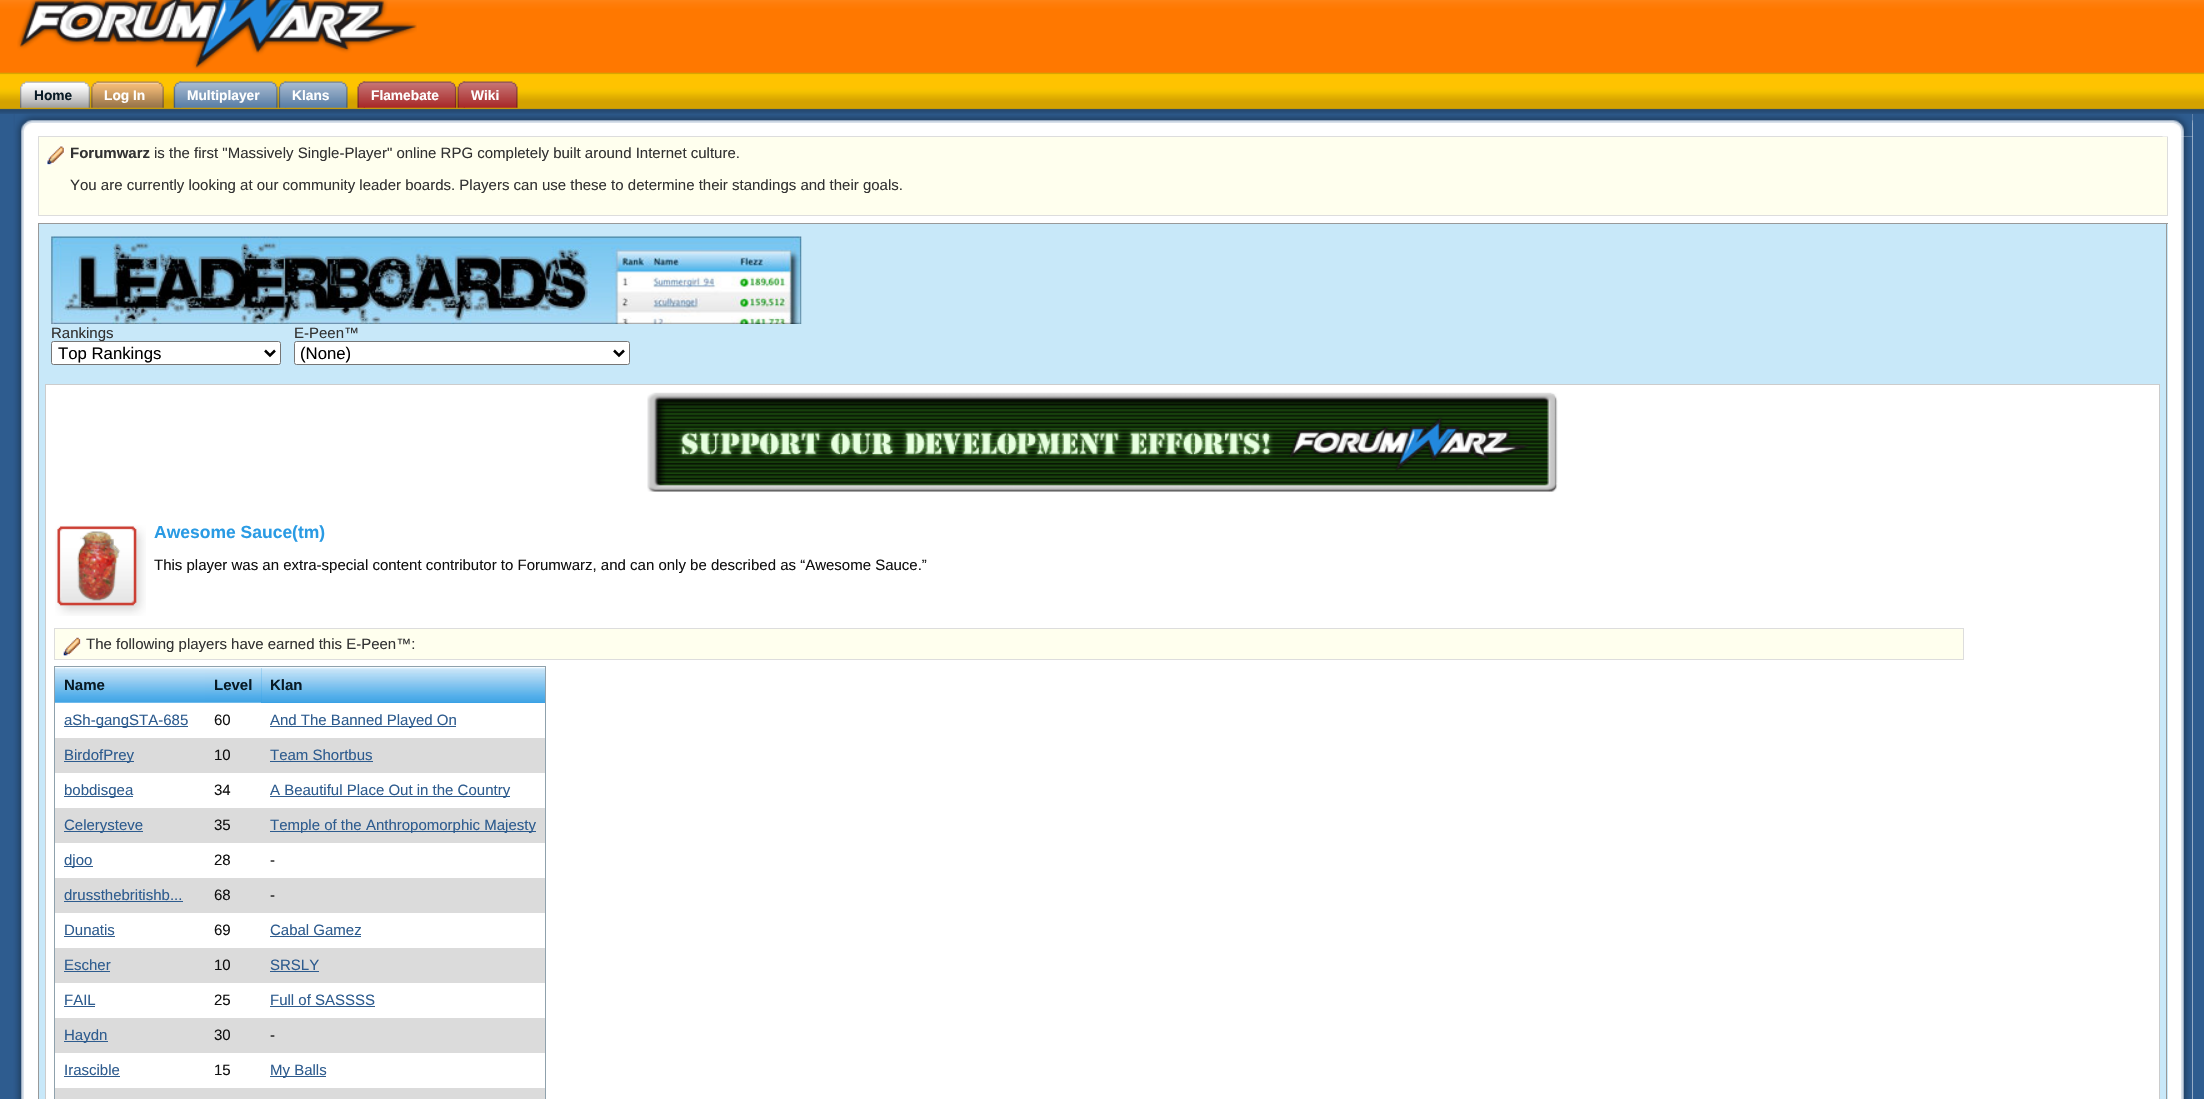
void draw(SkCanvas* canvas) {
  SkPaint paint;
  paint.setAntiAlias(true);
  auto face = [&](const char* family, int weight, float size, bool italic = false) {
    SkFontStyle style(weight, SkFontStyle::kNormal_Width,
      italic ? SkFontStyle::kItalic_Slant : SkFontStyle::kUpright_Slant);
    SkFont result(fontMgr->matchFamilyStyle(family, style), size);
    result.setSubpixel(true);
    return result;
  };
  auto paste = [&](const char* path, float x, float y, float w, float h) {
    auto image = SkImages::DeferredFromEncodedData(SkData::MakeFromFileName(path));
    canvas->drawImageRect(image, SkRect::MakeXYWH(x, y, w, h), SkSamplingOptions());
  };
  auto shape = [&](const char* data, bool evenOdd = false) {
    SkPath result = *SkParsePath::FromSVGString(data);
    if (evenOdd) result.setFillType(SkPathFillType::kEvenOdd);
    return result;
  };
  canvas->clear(0xff2e5c8f);
  paste("img/1.png", 0, 0, 2204, 114);
  paste("img/2.png", 17, 0, 400, 70);
  paste("img/3.png", 20, 81, 8, 27);
  paste("img/4.png", 26, 81, 65, 27);
  paste("img/5.png", 91, 81, 8, 27);
  paste("img/6.png", 97, 81, 67, 27);
  paste("img/7.png", 173, 81, 9, 27);
  paste("img/8.png", 180, 81, 98, 27);
  paste("img/7.png", 278, 81, 9, 27);
  paste("img/9.png", 285, 81, 63, 27);
  paste("img/10.png", 357, 81, 8, 27);
  paste("img/11.png", 363, 81, 94, 27);
  paste("img/12.png", 457, 81, 8, 27);
  paste("img/13.png", 463, 81, 55, 27);
  paint.setColor(0xffffffff);
  canvas->drawRect(SkRect::MakeXYWH(24, 114, 2169, 985), paint);
  paste("img/14.png", 13, 114, 11, 985);
  paste("img/15.png", 15, 114, 2178, 17);
  paste("img/17.png", 2181, 136, 12, 963);
  paint.setColor(0xffffffee);
  canvas->drawRect(SkRect::MakeXYWH(39, 137, 2128, 78), paint);
  paste("img/18.png", 46, 145, 19, 21);
  paint.setStroke(true);
  paint.setStrokeWidth(1);
  paint.setColor(0xffdddddd);
  canvas->drawRect(SkRect::MakeXYWH(38.5f, 136.5f, 2129, 79), paint);
  paste("img/16.png", 2162, 114, 31, 23);
  paint.setStroke(false);
  {
    const struct { float x, y, w, h; SkColor color; } items[] = {
      {39, 224, 2129, 875, 0xffc8e8f9},
      {38, 223, 2130, 1, 0xff999999},
      {2166, 223, 1, 876, 0xff999999},
      {38, 223, 1, 876, 0xff999999},
    };
    for (auto [x, y, w, h, color] : items) {
      paint.setColor(color);
      canvas->drawRect(SkRect::MakeXYWH(x, y, w, h), paint);
    }
  }
  paste("img/19.png", 51, 236, 751, 88);
  paint.setColor(0xffffffff);
  canvas->drawRoundRect(SkRect::MakeXYWH(294.5f, 341.5f, 335, 23), 2, 2, paint);
  paint.setStroke(true);
  paint.setColor(0xff767676);
  canvas->drawRoundRect(SkRect::MakeXYWH(294.5f, 341.5f, 335, 23), 2, 2, paint);
  paint.setStrokeWidth(2.5f);
  paint.setColor(0xff000000);
  canvas->drawPath(shape("M614 350.5L619 355.5L624 350.5"), paint);
  paint.setStroke(false);
  paint.setColor(0xffffffff);
  canvas->drawRect(SkRect::MakeXYWH(45.5f, 384.5f, 2114, 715), paint);
  paint.setStroke(true);
  paint.setStrokeWidth(1);
  paint.setColor(0xffcccccc);
  canvas->drawRect(SkRect::MakeXYWH(45.5f, 384.5f, 2114, 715), paint);
  paste("img/20.png", 647, 392, 911, 100);
  paste("img/21.png", 55, 525, 91, 91);
  paint.setStroke(false);
  paint.setColor(0xffffffee);
  canvas->drawRect(SkRect::MakeXYWH(55, 629, 1908, 30), paint);
  paste("img/22.png", 62, 636, 20, 21);
  paint.setStroke(true);
  paint.setColor(0xffdddddd);
  canvas->drawRect(SkRect::MakeXYWH(54.5f, 628.5f, 1909, 31), paint);
  paint.setColor(0xff8fa1ac);
  canvas->drawRect(SkRect::MakeXYWH(54.5f, 666.5f, 491, 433), paint);
  paste("img/23.png", 55, 667, 150, 36);
  paste("img/24.png", 205, 667, 57, 36);
  paint.setStroke(false);
  paint.setColor(0xff2b9be5);
  canvas->drawRect(SkRect::MakeXYWH(261, 668, 284, 35), paint);
  paste("img/25.png", 261, 667, 284, 36);
  {
    const struct { float x, y, w, h; SkColor color; } items[] = {
      {64, 726, 124, 1, 0xff2e5c8f},
      {270, 726, 186, 1, 0xff2e5c8f},
      {55, 738, 490, 35, 0xffdbdbdb},
      {64, 761, 70, 1, 0xff2e5c8f},
      {270, 761, 103, 1, 0xff2e5c8f},
      {64, 796, 69, 1, 0xff2e5c8f},
      {270, 796, 240, 1, 0xff2e5c8f},
      {55, 808, 490, 35, 0xffdbdbdb},
      {64, 831, 79, 1, 0xff2e5c8f},
      {270, 831, 266, 1, 0xff2e5c8f},
      {64, 866, 29, 1, 0xff2e5c8f},
      {55, 878, 490, 35, 0xffdbdbdb},
      {64, 901, 119, 1, 0xff2e5c8f},
      {64, 936, 51, 1, 0xff2e5c8f},
      {270, 936, 91, 1, 0xff2e5c8f},
      {55, 948, 490, 35, 0xffdbdbdb},
      {64, 971, 46, 1, 0xff2e5c8f},
      {270, 971, 49, 1, 0xff2e5c8f},
      {64, 1006, 31, 1, 0xff2e5c8f},
      {270, 1006, 105, 1, 0xff2e5c8f},
      {55, 1018, 490, 35, 0xffdbdbdb},
      {64, 1041, 44, 1, 0xff2e5c8f},
      {64, 1076, 56, 1, 0xff2e5c8f},
      {270, 1076, 56, 1, 0xff2e5c8f},
      {55, 1088, 490, 11, 0xffdbdbdb},
    };
    for (auto [x, y, w, h, color] : items) {
      paint.setColor(color);
      canvas->drawRect(SkRect::MakeXYWH(x, y, w, h), paint);
    }
  }
  auto f0 = face("Liberation Sans", 700, 13.75f);
  paint.setColor(0xff081a25);
  canvas->drawString("Home", 34, 100, f0, paint);
  paint.setColor(0xffffffff);
  {
    const struct { const char* s; float x, y; } items[] = {
      {"Log In", 104, 100},
      {"Multiplayer", 187, 100},
      {"Klans", 292, 100},
      {"Flamebate", 371, 100},
      {"Wiki", 471, 100},
    };
    for (auto [s, x, y] : items) {
      canvas->drawString(s, x, y, f0, paint);
    }
  }
  auto f1 = face("Liberation Sans", 700, 15);
  paint.setColor(0xff333333);
  canvas->drawString("Forumwarz", 70, 158, f1, paint);
  auto f2 = face("Liberation Sans", 400, 15);
  {
    const struct { const char* s; float x, y; } items[] = {
      {"is the first \"Massively Single-Player\" online RPG completely built around Internet culture.", 154, 158},
      {"You are currently looking at our community leader boards. Players can use these to determine their standings and their goals.", 70, 190},
      {"Rankings", 51, 338},
    };
    for (auto [s, x, y] : items) {
      canvas->drawString(s, x, y, f2, paint);
    }
  }
  paint.setColor(0xffffffff);
  canvas->drawRoundRect(SkRect::MakeXYWH(51.5f, 341.5f, 229, 23), 2, 2, paint);
  paint.setStroke(true);
  paint.setColor(0xff767676);
  canvas->drawRoundRect(SkRect::MakeXYWH(51.5f, 341.5f, 229, 23), 2, 2, paint);
  paint.setStrokeWidth(2.5f);
  paint.setColor(0xff000000);
  canvas->drawPath(shape("M265 350.5L270 355.5L275 350.5"), paint);
  auto f3 = face("Liberation Sans", 400, 16.75f);
  paint.setStroke(false);
  canvas->drawString("Top Rankings", 58, 359, f3, paint);
  paint.setColor(0xff333333);
  canvas->drawString("E-Peen™", 294, 338, f2, paint);
  paint.setColor(0xff000000);
  canvas->drawString("(None)", 300, 359, f3, paint);
  auto f4 = face("Liberation Sans", 700, 17.5f);
  paint.setColor(0xff2a9be4);
  canvas->drawString("Awesome Sauce(tm)", 154, 538, f4, paint);
  paint.setColor(0xff111111);
  canvas->drawString("This player was an extra-special content contributor to Forumwarz, and can only be described as “Awesome Sauce.”", 154, 570, f2, paint);
  paint.setColor(0xff333333);
  canvas->drawString("The following players have earned this E-Peen™:", 86, 649, f2, paint);
  paint.setColor(0xff081a25);
  {
    const struct { const char* s; float x, y; } items[] = {
      {"Name", 64, 690},
      {"Level", 214, 690},
      {"Klan", 270, 690},
    };
    for (auto [s, x, y] : items) {
      canvas->drawString(s, x, y, f1, paint);
    }
  }
  paint.setColor(0xff2e5c8f);
  canvas->drawString("aSh-gangSTA-685", 64, 725, f2, paint);
  paint.setColor(0xff111111);
  canvas->drawString("60", 214, 725, f2, paint);
  paint.setColor(0xff2e5c8f);
  canvas->drawString("And The Banned Played On", 270, 725, f2, paint);
  canvas->drawString("BirdofPrey", 64, 760, f2, paint);
  paint.setColor(0xff111111);
  canvas->drawString("10", 214, 760, f2, paint);
  paint.setColor(0xff2e5c8f);
  canvas->drawString("Team Shortbus", 270, 760, f2, paint);
  canvas->drawString("bobdisgea", 64, 795, f2, paint);
  paint.setColor(0xff111111);
  canvas->drawString("34", 214, 795, f2, paint);
  paint.setColor(0xff2e5c8f);
  canvas->drawString("A Beautiful Place Out in the Country", 270, 795, f2, paint);
  canvas->drawString("Celerysteve", 64, 830, f2, paint);
  paint.setColor(0xff111111);
  canvas->drawString("35", 214, 830, f2, paint);
  paint.setColor(0xff2e5c8f);
  canvas->drawString("Temple of the Anthropomorphic Majesty", 270, 830, f2, paint);
  canvas->drawString("djoo", 64, 865, f2, paint);
  paint.setColor(0xff111111);
  canvas->drawString("28", 214, 865, f2, paint);
  canvas->drawString("-", 270, 865, f2, paint);
  paint.setColor(0xff2e5c8f);
  canvas->drawString("drussthebritishb...", 64, 900, f2, paint);
  paint.setColor(0xff111111);
  canvas->drawString("68", 214, 900, f2, paint);
  canvas->drawString("-", 270, 900, f2, paint);
  paint.setColor(0xff2e5c8f);
  canvas->drawString("Dunatis", 64, 935, f2, paint);
  paint.setColor(0xff111111);
  canvas->drawString("69", 214, 935, f2, paint);
  paint.setColor(0xff2e5c8f);
  canvas->drawString("Cabal Gamez", 270, 935, f2, paint);
  canvas->drawString("Escher", 64, 970, f2, paint);
  paint.setColor(0xff111111);
  canvas->drawString("10", 214, 970, f2, paint);
  paint.setColor(0xff2e5c8f);
  canvas->drawString("SRSLY", 270, 970, f2, paint);
  canvas->drawString("FAIL", 64, 1005, f2, paint);
  paint.setColor(0xff111111);
  canvas->drawString("25", 214, 1005, f2, paint);
  paint.setColor(0xff2e5c8f);
  canvas->drawString("Full of SASSSS", 270, 1005, f2, paint);
  canvas->drawString("Haydn", 64, 1040, f2, paint);
  paint.setColor(0xff111111);
  canvas->drawString("30", 214, 1040, f2, paint);
  canvas->drawString("-", 270, 1040, f2, paint);
  paint.setColor(0xff2e5c8f);
  canvas->drawString("Irascible", 64, 1075, f2, paint);
  paint.setColor(0xff111111);
  canvas->drawString("15", 214, 1075, f2, paint);
  paint.setColor(0xff2e5c8f);
  canvas->drawString("My Balls", 270, 1075, f2, paint);
}
